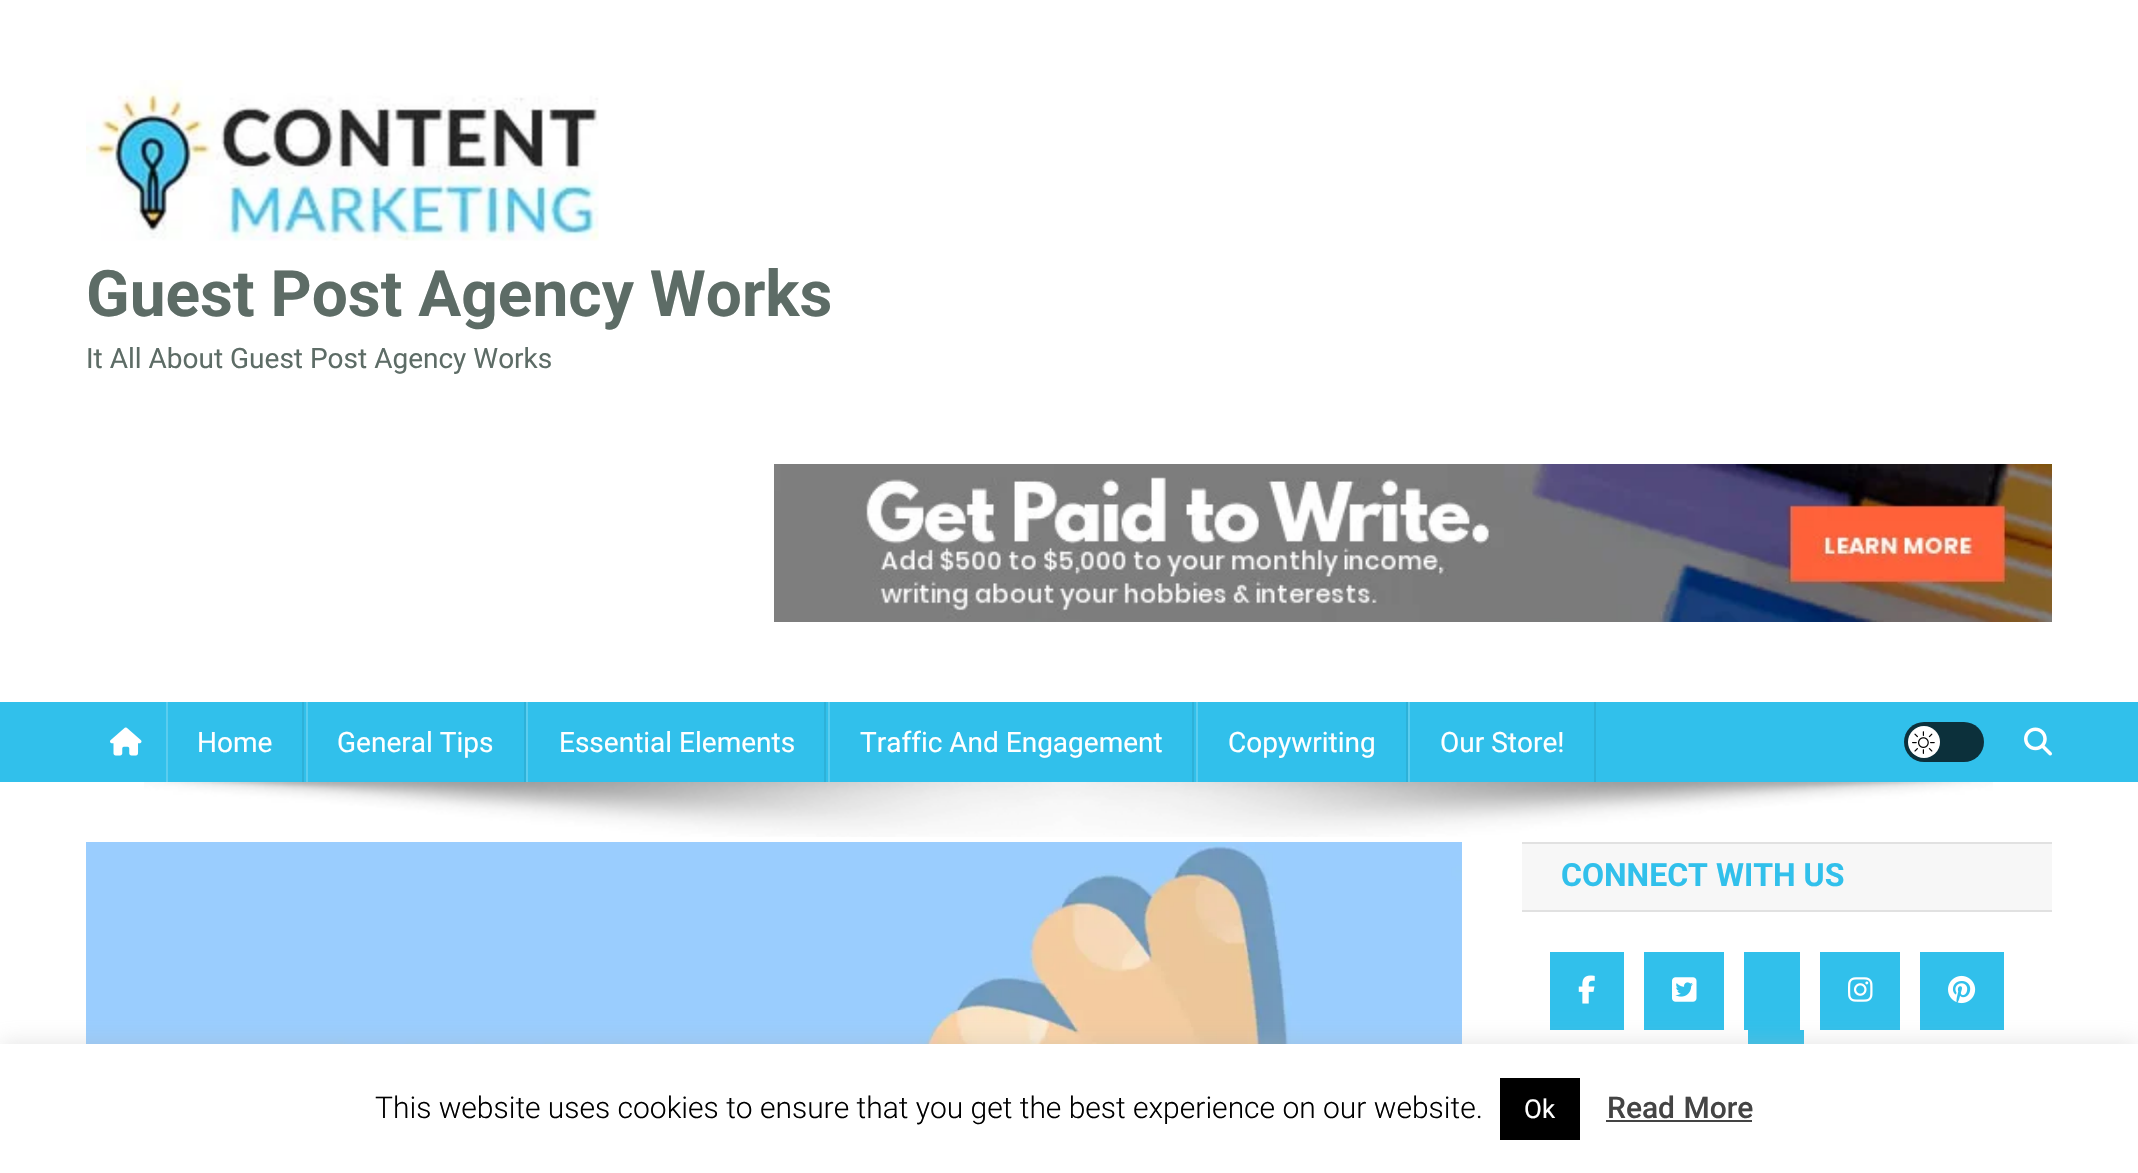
void draw(SkCanvas* canvas) {
  SkPaint paint;
  paint.setAntiAlias(true);
  auto face = [&](const char* family, int weight, float size, bool italic = false) {
    SkFontStyle style(weight, SkFontStyle::kNormal_Width,
      italic ? SkFontStyle::kItalic_Slant : SkFontStyle::kUpright_Slant);
    SkFont result(fontMgr->matchFamilyStyle(family, style), size);
    result.setSubpixel(true);
    return result;
  };
  auto writeSpaced = [&](const char* s, float x, float y, const SkFont& font, const SkPaint& ink, float letter, float word) {
    std::vector<SkGlyphID> glyphs(font.countText(s, strlen(s), SkTextEncoding::kUTF8));
    std::vector<float> xs(glyphs.size());
    font.textToGlyphs(s, strlen(s), SkTextEncoding::kUTF8, glyphs);
    font.getXPos(glyphs, xs, x);
    float extra = 0;
    for (size_t i = 0; i < glyphs.size(); i++) {
      xs[i] += extra;
      extra += letter + word * (glyphs[i] == font.unicharToGlyph(' '));
    }
    canvas->drawTextBlob(SkTextBlob::MakeFromPosHGlyphs(glyphs, xs, y, font), 0, 0, ink);
  };
  auto paste = [&](const char* path, float x, float y, float w, float h) {
    auto image = SkImages::DeferredFromEncodedData(SkData::MakeFromFileName(path));
    canvas->drawImageRect(image, SkRect::MakeXYWH(x, y, w, h), SkSamplingOptions());
  };
  canvas->clear(0xffffffff);
  paste("img/1.png", 86, 80, 513, 161);
  paste("img/2.png", 774, 464, 1278, 158);
  paint.setColor(0xff31c0eb);
  canvas->drawRect(SkRect::MakeXYWH(0, 702, 2138, 80), paint);
  paste("img/3.png", 110, 727, 32, 29);
  {
    const struct { float x, y, w, h; SkColor color; } items[] = {
      {302, 702, 2, 80, 0xff2db1d8},
      {166, 702, 2, 80, 0xff5acdef},
      {524, 702, 2, 80, 0xff2db1d8},
      {306, 702, 2, 80, 0xff5acdef},
      {824, 702, 2, 80, 0xff2db1d8},
      {526, 702, 2, 80, 0xff5acdef},
      {1192, 702, 2, 80, 0xff2db1d8},
      {828, 702, 2, 80, 0xff5acdef},
      {1406, 702, 2, 80, 0xff2db1d8},
      {1196, 702, 2, 80, 0xff5acdef},
      {1594, 702, 2, 80, 0xff2db1d8},
      {1408, 702, 2, 80, 0xff5acdef},
    };
    for (auto [x, y, w, h, color] : items) {
      paint.setColor(color);
      canvas->drawRect(SkRect::MakeXYWH(x, y, w, h), paint);
    }
  }
  paint.setColor(0xff0c303b);
  canvas->drawRoundRect(SkRect::MakeXYWH(1904, 722, 80, 40), 20, 20, paint);
  paint.setColor(0xffffffff);
  canvas->drawCircle(1924, 742, 16, paint);
  paste("img/4.png", 1912, 731, 23, 23);
  paste("img/5.png", 2024, 727, 28, 29);
  paste("img/6.png", 144, 782, 1849, 55);
  paste("img/7.png", 86, 842, 1376, 202);
  {
    const struct { float x, y, w, h; SkColor color; } items[] = {
      {1522, 844, 530, 66, 0xfff7f7f7},
      {1522, 842, 530, 2, 0xffe1e1e1},
      {1522, 910, 530, 2, 0xffe1e1e1},
      {1550, 952, 74, 78, 0xff31c0eb},
    };
    for (auto [x, y, w, h, color] : items) {
      paint.setColor(color);
      canvas->drawRect(SkRect::MakeXYWH(x, y, w, h), paint);
    }
  }
  paste("img/8.png", 1578, 975, 17, 29);
  canvas->drawRect(SkRect::MakeXYWH(1644, 952, 80, 78), paint);
  paste("img/9.png", 1672, 977, 25, 25);
  canvas->drawRect(SkRect::MakeXYWH(1744, 952, 56, 78), paint);
  canvas->drawRect(SkRect::MakeXYWH(1820, 952, 80, 78), paint);
  paste("img/10.png", 1848, 977, 25, 25);
  canvas->drawRect(SkRect::MakeXYWH(1920, 952, 84, 78), paint);
  paste("img/11.png", 1948, 975, 28, 29);
  canvas->drawRect(SkRect::MakeXYWH(1748, 1030, 56, 14), paint);
  paint.setColor(0x4dacabab);
  paint.setMaskFilter(SkMaskFilter::MakeBlur(kNormal_SkBlurStyle, 10));
  canvas->drawRect(SkRect::MakeXYWH(0, 1042, 2138, 130), paint);
  paint.setMaskFilter(nullptr);
  {
    const struct { float x, y, w, h; SkColor color; } items[] = {
      {0, 1044, 2138, 129, 0xffffffff},
      {1500, 1078, 80, 62, 0xff000000},
      {1606, 1120, 146, 2, 0xff444444},
    };
    for (auto [x, y, w, h, color] : items) {
      paint.setColor(color);
      canvas->drawRect(SkRect::MakeXYWH(x, y, w, h), paint);
    }
  }
  auto f0 = face("Roboto", 700, 64);
  paint.setColor(0xff5d6c66);
  canvas->drawString("Guest Post Agency Works", 86, 316, f0, paint);
  auto f1 = face("Roboto", 400, 28);
  canvas->drawString("It All About Guest Post Agency Works", 86, 368, f1, paint);
  paint.setColor(0xffffffff);
  {
    const struct { const char* s; float x, y; } items[] = {
      {"Home", 197, 752},
      {"General Tips", 337, 752},
      {"Essential Elements", 559, 752},
      {"Traffic And Engagement", 860, 752},
      {"Copywriting", 1228, 752},
      {"Our Store!", 1440, 752},
    };
    for (auto [s, x, y] : items) {
      canvas->drawString(s, x, y, f1, paint);
    }
  }
  auto f2 = face("Roboto", 700, 32);
  paint.setColor(0xff31c0eb);
  canvas->drawString("CONNECT WITH US", 1561, 886, f2, paint);
  auto f3 = face("Roboto", 300, 30);
  paint.setColor(0xff000000);
  canvas->drawString("This website uses cookies to ensure that you get the best experience on our website.", 375, 1118, f3, paint);
  auto f4 = face("Roboto", 400, 26);
  paint.setColor(0xffffffff);
  canvas->drawString("Ok", 1524, 1118, f4, paint);
  auto f5 = face("Roboto", 500, 30);
  paint.setColor(0xff444444);
  writeSpaced("Read More", 1607, 1118, f5, paint, 0, 1);
}
